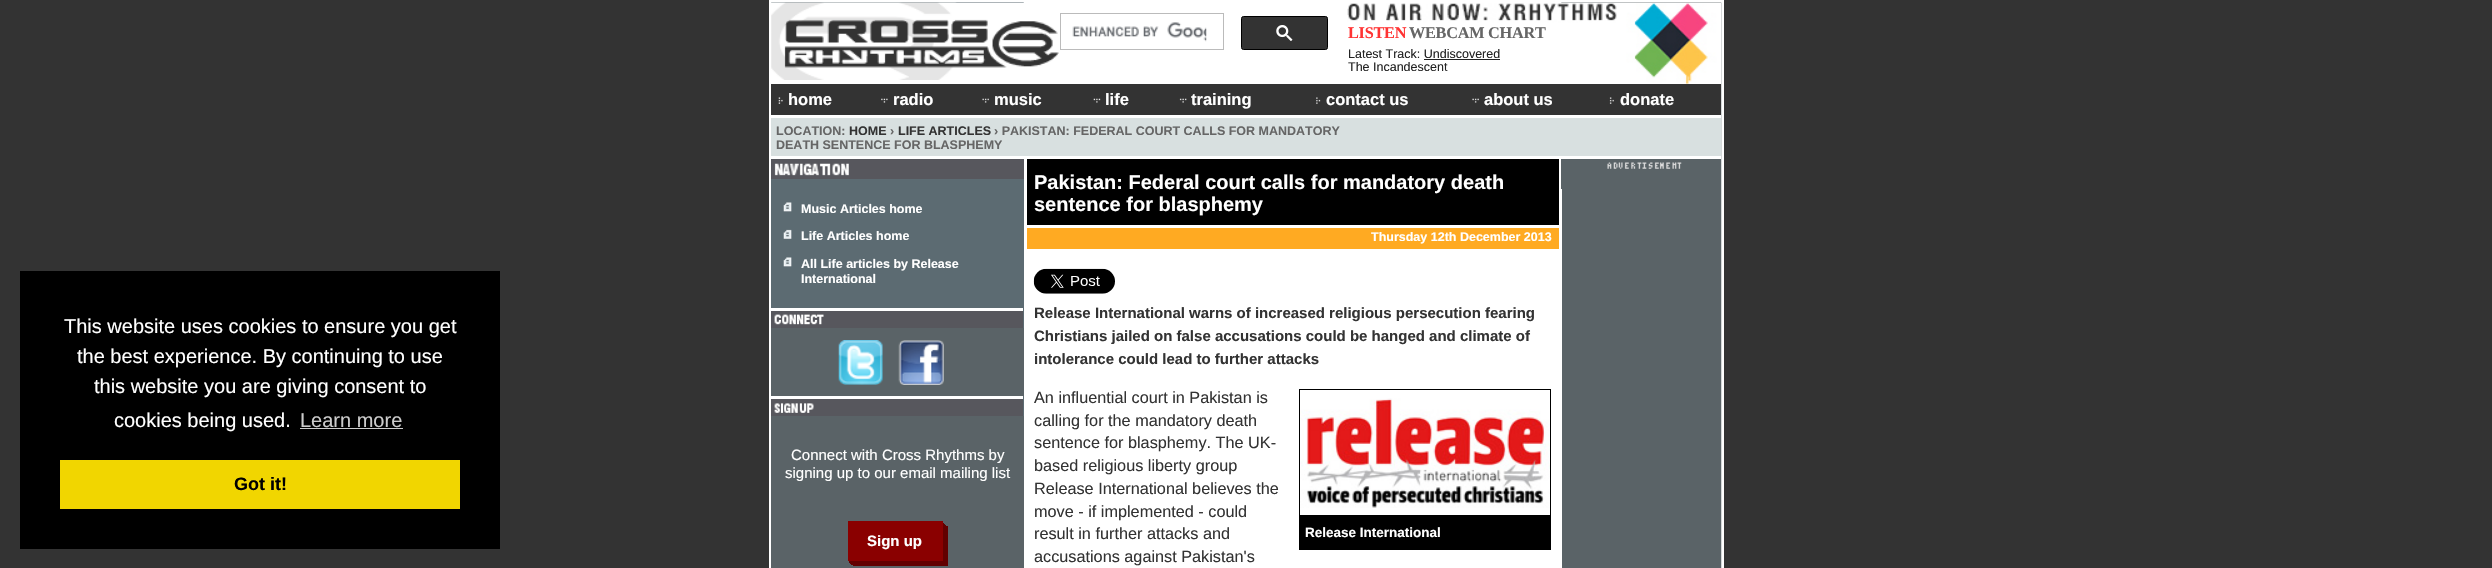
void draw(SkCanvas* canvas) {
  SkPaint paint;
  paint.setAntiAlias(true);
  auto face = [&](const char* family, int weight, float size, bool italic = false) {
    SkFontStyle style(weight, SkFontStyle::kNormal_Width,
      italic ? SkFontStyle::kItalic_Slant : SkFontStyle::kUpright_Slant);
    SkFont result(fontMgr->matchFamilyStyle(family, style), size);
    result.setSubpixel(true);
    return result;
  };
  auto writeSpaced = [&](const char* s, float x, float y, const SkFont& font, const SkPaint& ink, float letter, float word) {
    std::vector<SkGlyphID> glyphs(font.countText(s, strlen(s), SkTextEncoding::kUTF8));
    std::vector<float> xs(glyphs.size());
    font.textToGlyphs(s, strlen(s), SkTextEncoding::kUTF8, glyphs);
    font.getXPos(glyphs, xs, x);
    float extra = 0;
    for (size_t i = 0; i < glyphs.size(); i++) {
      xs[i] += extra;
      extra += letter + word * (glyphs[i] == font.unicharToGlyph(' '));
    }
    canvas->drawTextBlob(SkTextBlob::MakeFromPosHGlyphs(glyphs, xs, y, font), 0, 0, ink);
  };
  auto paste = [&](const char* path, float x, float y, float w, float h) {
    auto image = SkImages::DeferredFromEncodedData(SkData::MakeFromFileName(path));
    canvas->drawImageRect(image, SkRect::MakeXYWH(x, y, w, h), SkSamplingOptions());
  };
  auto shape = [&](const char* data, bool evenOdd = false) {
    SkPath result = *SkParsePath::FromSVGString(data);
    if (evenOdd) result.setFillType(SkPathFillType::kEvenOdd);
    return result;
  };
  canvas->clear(0xff333333);
  {
    const struct { float x, y, w, h; SkColor color; } items[] = {
      {20, 271, 480, 278, 0xff000000},
      {300, 428, 103, 1, 0xffcccccc},
      {60, 460, 400, 49, 0xfff1d600},
    };
    for (auto [x, y, w, h, color] : items) {
      paint.setColor(color);
      canvas->drawRect(SkRect::MakeXYWH(x, y, w, h), paint);
    }
  }
  paint.setStroke(true);
  paint.setStrokeWidth(3);
  paint.setColor(0xffffffff);
  canvas->drawRect(SkRect::MakeXYWH(770.5f, 1.5f, 952, 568), paint);
  paste("img/1.png", 771, 2, 951, 566);
  paint.setStroke(false);
  canvas->drawRect(SkRect::MakeXYWH(771, 3, 950, 81), paint);
  paste("img/2.png", 771, 2, 288, 78);
  paint.setStroke(true);
  paint.setStrokeWidth(1);
  paint.setColor(0xffbbbbbb);
  canvas->drawRect(SkRect::MakeXYWH(1060.5f, 13.5f, 163, 36), paint);
  paste("img/3.png", 1072, 22, 135, 20);
  paint.setStroke(false);
  paint.setColor(0xff333333);
  canvas->drawRoundRect(SkRect::MakeXYWH(1241.5f, 16.5f, 86, 33), 2, 2, paint);
  paint.setStroke(true);
  paint.setColor(0xff000000);
  canvas->drawRoundRect(SkRect::MakeXYWH(1241.5f, 16.5f, 86, 33), 2, 2, paint);
  paste("img/4.png", 1276, 25, 17, 16);
  paste("img/5.png", 1347, 2, 374, 82);
  paint.setStroke(false);
  paint.setColor(0xff222222);
  canvas->drawRect(SkRect::MakeXYWH(1424, 59, 76, 1), paint);
  paint.setColor(0xff333333);
  canvas->drawRect(SkRect::MakeXYWH(771, 84, 950, 31), paint);
  paste("img/6.png", 778, 97, 5, 7);
  paste("img/7.png", 881, 98, 7, 5);
  paste("img/8.png", 982, 98, 7, 5);
  paste("img/9.png", 1093, 98, 8, 5);
  paste("img/10.png", 1179, 98, 8, 5);
  paste("img/11.png", 1316, 97, 5, 7);
  paste("img/12.png", 1472, 98, 7, 5);
  paste("img/13.png", 1609, 97, 5, 7);
  {
    const struct { float x, y, w, h; SkColor color; } items[] = {
      {771, 118, 950, 38, 0xffd8e0e0},
      {771, 115, 950, 3, 0xffffffff},
      {771, 179, 253, 237, 0xff5c6b72},
      {771, 156, 255, 3, 0xffffffff},
      {771, 159, 253, 20, 0xff57575d},
    };
    for (auto [x, y, w, h, color] : items) {
      paint.setColor(color);
      canvas->drawRect(SkRect::MakeXYWH(x, y, w, h), paint);
    }
  }
  paste("img/14.png", 774, 163, 75, 13);
  paste("img/15.png", 783, 202, 9, 10);
  paste("img/16.png", 783, 229, 9, 10);
  paste("img/15.png", 783, 257, 9, 10);
  canvas->drawRect(SkRect::MakeXYWH(771, 311, 252, 17), paint);
  paint.setColor(0xffffffff);
  canvas->drawRect(SkRect::MakeXYWH(771, 308, 252, 3), paint);
  paste("img/17.png", 774, 314, 50, 11);
  paint.setColor(0xff5a6367);
  canvas->drawRect(SkRect::MakeXYWH(771, 328, 253, 68), paint);
  paste("img/18.png", 838, 340, 45, 45);
  paste("img/19.png", 898, 340, 46, 45);
  paint.setColor(0xff57575d);
  canvas->drawRect(SkRect::MakeXYWH(771, 399, 252, 17), paint);
  paint.setColor(0xffffffff);
  canvas->drawRect(SkRect::MakeXYWH(771, 396, 252, 3), paint);
  paste("img/20.png", 774, 403, 40, 10);
  paint.setColor(0xff5a6367);
  canvas->drawRect(SkRect::MakeXYWH(771, 416, 253, 152), paint);
  paint.setColor(0xff620000);
  canvas->drawPath(shape("M853 561V566H948V526H942V561Z"), paint);
  canvas->drawPath(shape("M851 561V565H946V525H942V561Z"), paint);
  canvas->drawPath(shape("M850 561V564H945V524H942V561Z"), paint);
  canvas->drawPath(shape("M849 561V563H944V523H942V561Z"), paint);
  {
    const struct { float x, y, w, h; SkColor color; } items[] = {
      {848, 521, 95, 40, 0xff8a0000},
      {1561, 156, 1, 412, 0xffffffff},
      {1027, 159, 532, 66, 0xff000000},
      {1027, 228, 532, 21, 0xffffaa22},
    };
    for (auto [x, y, w, h, color] : items) {
      paint.setColor(color);
      canvas->drawRect(SkRect::MakeXYWH(x, y, w, h), paint);
    }
  }
  paste("img/21.png", 1033, 268, 82, 26);
  paint.setStroke(true);
  paint.setColor(0xff000000);
  canvas->drawRect(SkRect::MakeXYWH(1299.5f, 389.5f, 251, 160), paint);
  paste("img/22.png", 1300, 398, 250, 110);
  paint.setStroke(false);
  {
    const struct { float x, y, w, h; SkColor color; } items[] = {
      {1300, 515, 250, 34, 0xff000000},
      {1561, 159, 1, 30, 0xff5a6367},
      {1561, 156, 160, 3, 0xffffffff},
    };
    for (auto [x, y, w, h, color] : items) {
      paint.setColor(color);
      canvas->drawRect(SkRect::MakeXYWH(x, y, w, h), paint);
    }
  }
  paste("img/23.png", 1607, 162, 75, 7);
  auto f0 = face("Liberation Sans", 400, 20);
  {
    const struct { const char* s; float x, y; } items[] = {
      {"This website uses cookies to ensure you get", 64, 333},
      {"the best experience. By continuing to use", 77, 363},
      {"this website you are giving consent to", 94, 393},
      {"cookies being used.", 114, 427},
    };
    for (auto [s, x, y] : items) {
      canvas->drawString(s, x, y, f0, paint);
    }
  }
  paint.setColor(0xffcccccc);
  canvas->drawString("Learn more", 300, 427, f0, paint);
  auto f1 = face("Liberation Sans", 700, 18);
  paint.setColor(0xff000000);
  canvas->drawString("Got it!", 234, 490, f1, paint);
  auto f2 = face("Liberation Serif", 700, 16.25f);
  paint.setColor(0xffff3333);
  writeSpaced("LISTEN", 1348, 38, f2, paint, -0.25f, 0);
  paint.setColor(0xff666666);
  writeSpaced("WEBCAM CHART", 1409, 38, f2, paint, -0.25f, 0);
  auto f3 = face("Liberation Sans", 400, 12.5f);
  paint.setColor(0xff222222);
  canvas->drawString("Latest Track: Undiscovered", 1348, 58, f3, paint);
  canvas->drawString("The Incandescent", 1348, 71, f3, paint);
  auto f4 = face("Liberation Sans", 700, 16.5f);
  paint.setColor(0xffffffff);
  {
    const struct { const char* s; float x, y; } items[] = {
      {"home", 788, 105},
      {"radio", 893, 105},
      {"music", 994, 105},
      {"life", 1105, 105},
      {"training", 1191, 105},
      {"contact us", 1326, 105},
      {"about us", 1484, 105},
      {"donate", 1620, 105},
    };
    for (auto [s, x, y] : items) {
      canvas->drawString(s, x, y, f4, paint);
    }
  }
  auto f5 = face("Liberation Sans", 700, 12.5f);
  paint.setColor(0xff666666);
  canvas->drawString("LOCATION:", 776, 135, f5, paint);
  paint.setColor(0xff333333);
  canvas->drawString("HOME", 849, 135, f5, paint);
  paint.setColor(0xff666666);
  canvas->drawString("›", 890, 135, f5, paint);
  paint.setColor(0xff333333);
  canvas->drawString("LIFE ARTICLES", 898, 135, f5, paint);
  paint.setColor(0xff666666);
  canvas->drawString("› PAKISTAN: FEDERAL COURT CALLS FOR MANDATORY", 994, 135, f5, paint);
  canvas->drawString("DEATH SENTENCE FOR BLASPHEMY", 776, 149, f5, paint);
  paint.setColor(0xffffffff);
  {
    const struct { const char* s; float x, y; } items[] = {
      {"Music Articles home", 801, 213},
      {"Life Articles home", 801, 240},
      {"All Life articles by Release", 801, 268},
      {"International", 801, 283},
    };
    for (auto [s, x, y] : items) {
      canvas->drawString(s, x, y, f5, paint);
    }
  }
  auto f6 = face("Liberation Sans", 400, 15);
  canvas->drawString("Connect with Cross Rhythms by", 791, 460, f6, paint);
  canvas->drawString("signing up to our email mailing list", 785, 478, f6, paint);
  auto f7 = face("Liberation Sans", 700, 15);
  canvas->drawString("Sign up", 867, 546, f7, paint);
  auto f8 = face("Liberation Sans", 700, 20);
  canvas->drawString("Pakistan: Federal court calls for mandatory death", 1034, 189, f8, paint);
  canvas->drawString("sentence for blasphemy", 1034, 211, f8, paint);
  canvas->drawString("Thursday 12th December 2013", 1371, 241, f5, paint);
  paint.setColor(0xff333333);
  {
    const struct { const char* s; float x, y; } items[] = {
      {"Release International warns of increased religious persecution fearing", 1034, 318},
      {"Christians jailed on false accusations could be hanged and climate of", 1034, 341},
      {"intolerance could lead to further attacks", 1034, 364},
    };
    for (auto [s, x, y] : items) {
      canvas->drawString(s, x, y, f7, paint);
    }
  }
  auto f9 = face("Liberation Sans", 400, 16.25f);
  {
    const struct { const char* s; float x, y; } items[] = {
      {"An influential court in Pakistan is", 1034, 403},
      {"calling for the mandatory death", 1034, 426},
      {"sentence for blasphemy. The UK-", 1034, 448},
      {"based religious liberty group", 1034, 471},
      {"Release International believes the", 1034, 494},
      {"move - if implemented - could", 1034, 517},
      {"result in further attacks and", 1034, 539},
      {"accusations against Pakistan's", 1034, 562},
    };
    for (auto [s, x, y] : items) {
      canvas->drawString(s, x, y, f9, paint);
    }
  }
  auto f10 = face("Liberation Sans", 700, 13.5f);
  paint.setColor(0xffffffff);
  canvas->drawString("Release International", 1305, 537, f10, paint);
}
